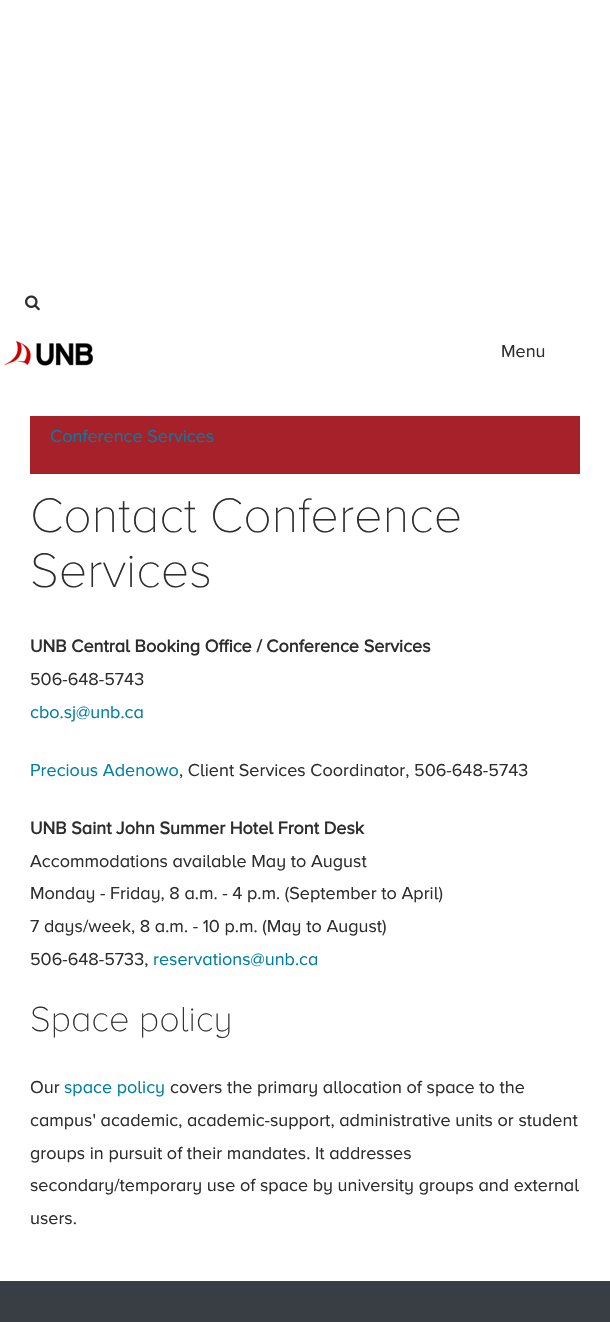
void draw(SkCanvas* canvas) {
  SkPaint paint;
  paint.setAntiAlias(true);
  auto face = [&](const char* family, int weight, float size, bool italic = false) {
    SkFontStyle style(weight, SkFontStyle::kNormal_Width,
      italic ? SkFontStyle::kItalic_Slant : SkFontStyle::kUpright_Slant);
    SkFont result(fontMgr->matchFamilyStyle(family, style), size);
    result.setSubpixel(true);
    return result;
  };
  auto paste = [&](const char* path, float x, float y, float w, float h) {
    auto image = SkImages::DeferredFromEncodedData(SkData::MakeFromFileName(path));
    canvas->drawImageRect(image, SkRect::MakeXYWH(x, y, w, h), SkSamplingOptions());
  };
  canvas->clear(0xffffffff);
  paste("img/1.png", 25, 295, 15, 16);
  paste("img/2.png", 4, 341, 89, 25);
  paint.setColor(0xffa7212a);
  canvas->drawRect(SkRect::MakeXYWH(30, 416, 550, 58), paint);
  paint.setColor(0xff393e44);
  canvas->drawRect(SkRect::MakeXYWH(0, 1281, 610, 41), paint);
  auto f0 = face("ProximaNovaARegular", 400, 18);
  paint.setColor(0xff2d2d2d);
  canvas->drawString("Menu", 501, 357, f0, paint);
  paint.setColor(0xff007fa3);
  canvas->drawString("Conference Services", 50, 442, f0, paint);
  auto f1 = face("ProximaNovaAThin", 100, 50);
  paint.setColor(0xff2d2d2d);
  canvas->drawString("Contact Conference", 30, 532, f1, paint);
  canvas->drawString("Services", 30, 587, f1, paint);
  auto f2 = face("ProximaNovaARegular", 700, 18);
  canvas->drawString("UNB Central Booking Office / Conference Services", 30, 652, f2, paint);
  canvas->drawString("506-648-5743", 30, 685, f0, paint);
  paint.setColor(0xff007fa3);
  canvas->drawString("cbo.sj@unb.ca", 30, 718, f0, paint);
  canvas->drawString("Precious Adenowo", 30, 776, f0, paint);
  paint.setColor(0xff2d2d2d);
  canvas->drawString(", Client Services Coordinator, 506-648-5743", 179, 776, f0, paint);
  canvas->drawString("UNB Saint John Summer Hotel Front Desk", 30, 834, f2, paint);
  {
    const struct { const char* s; float x, y; } items[] = {
      {"Accommodations available May to August", 30, 867},
      {"Monday - Friday, 8 a.m. - 4 p.m. (September to April)", 30, 899},
      {"7 days/week, 8 a.m. - 10 p.m. (May to August)", 30, 932},
      {"506-648-5733,", 30, 965},
    };
    for (auto [s, x, y] : items) {
      canvas->drawString(s, x, y, f0, paint);
    }
  }
  paint.setColor(0xff007fa3);
  canvas->drawString("reservations@unb.ca", 153, 965, f0, paint);
  auto f3 = face("ProximaNovaAThin", 100, 36);
  paint.setColor(0xff2d2d2d);
  canvas->drawString("Space policy", 30, 1031, f3, paint);
  canvas->drawString("Our", 30, 1093, f0, paint);
  paint.setColor(0xff007fa3);
  canvas->drawString("space policy", 64, 1093, f0, paint);
  paint.setColor(0xff2d2d2d);
  {
    const struct { const char* s; float x, y; } items[] = {
      {"covers the primary allocation of space to the", 170, 1093},
      {"campus' academic, academic-support, administrative units or student", 30, 1126},
      {"groups in pursuit of their mandates. It addresses", 30, 1159},
      {"secondary/temporary use of space by university groups and external", 30, 1191},
      {"users.", 30, 1224},
    };
    for (auto [s, x, y] : items) {
      canvas->drawString(s, x, y, f0, paint);
    }
  }
}
